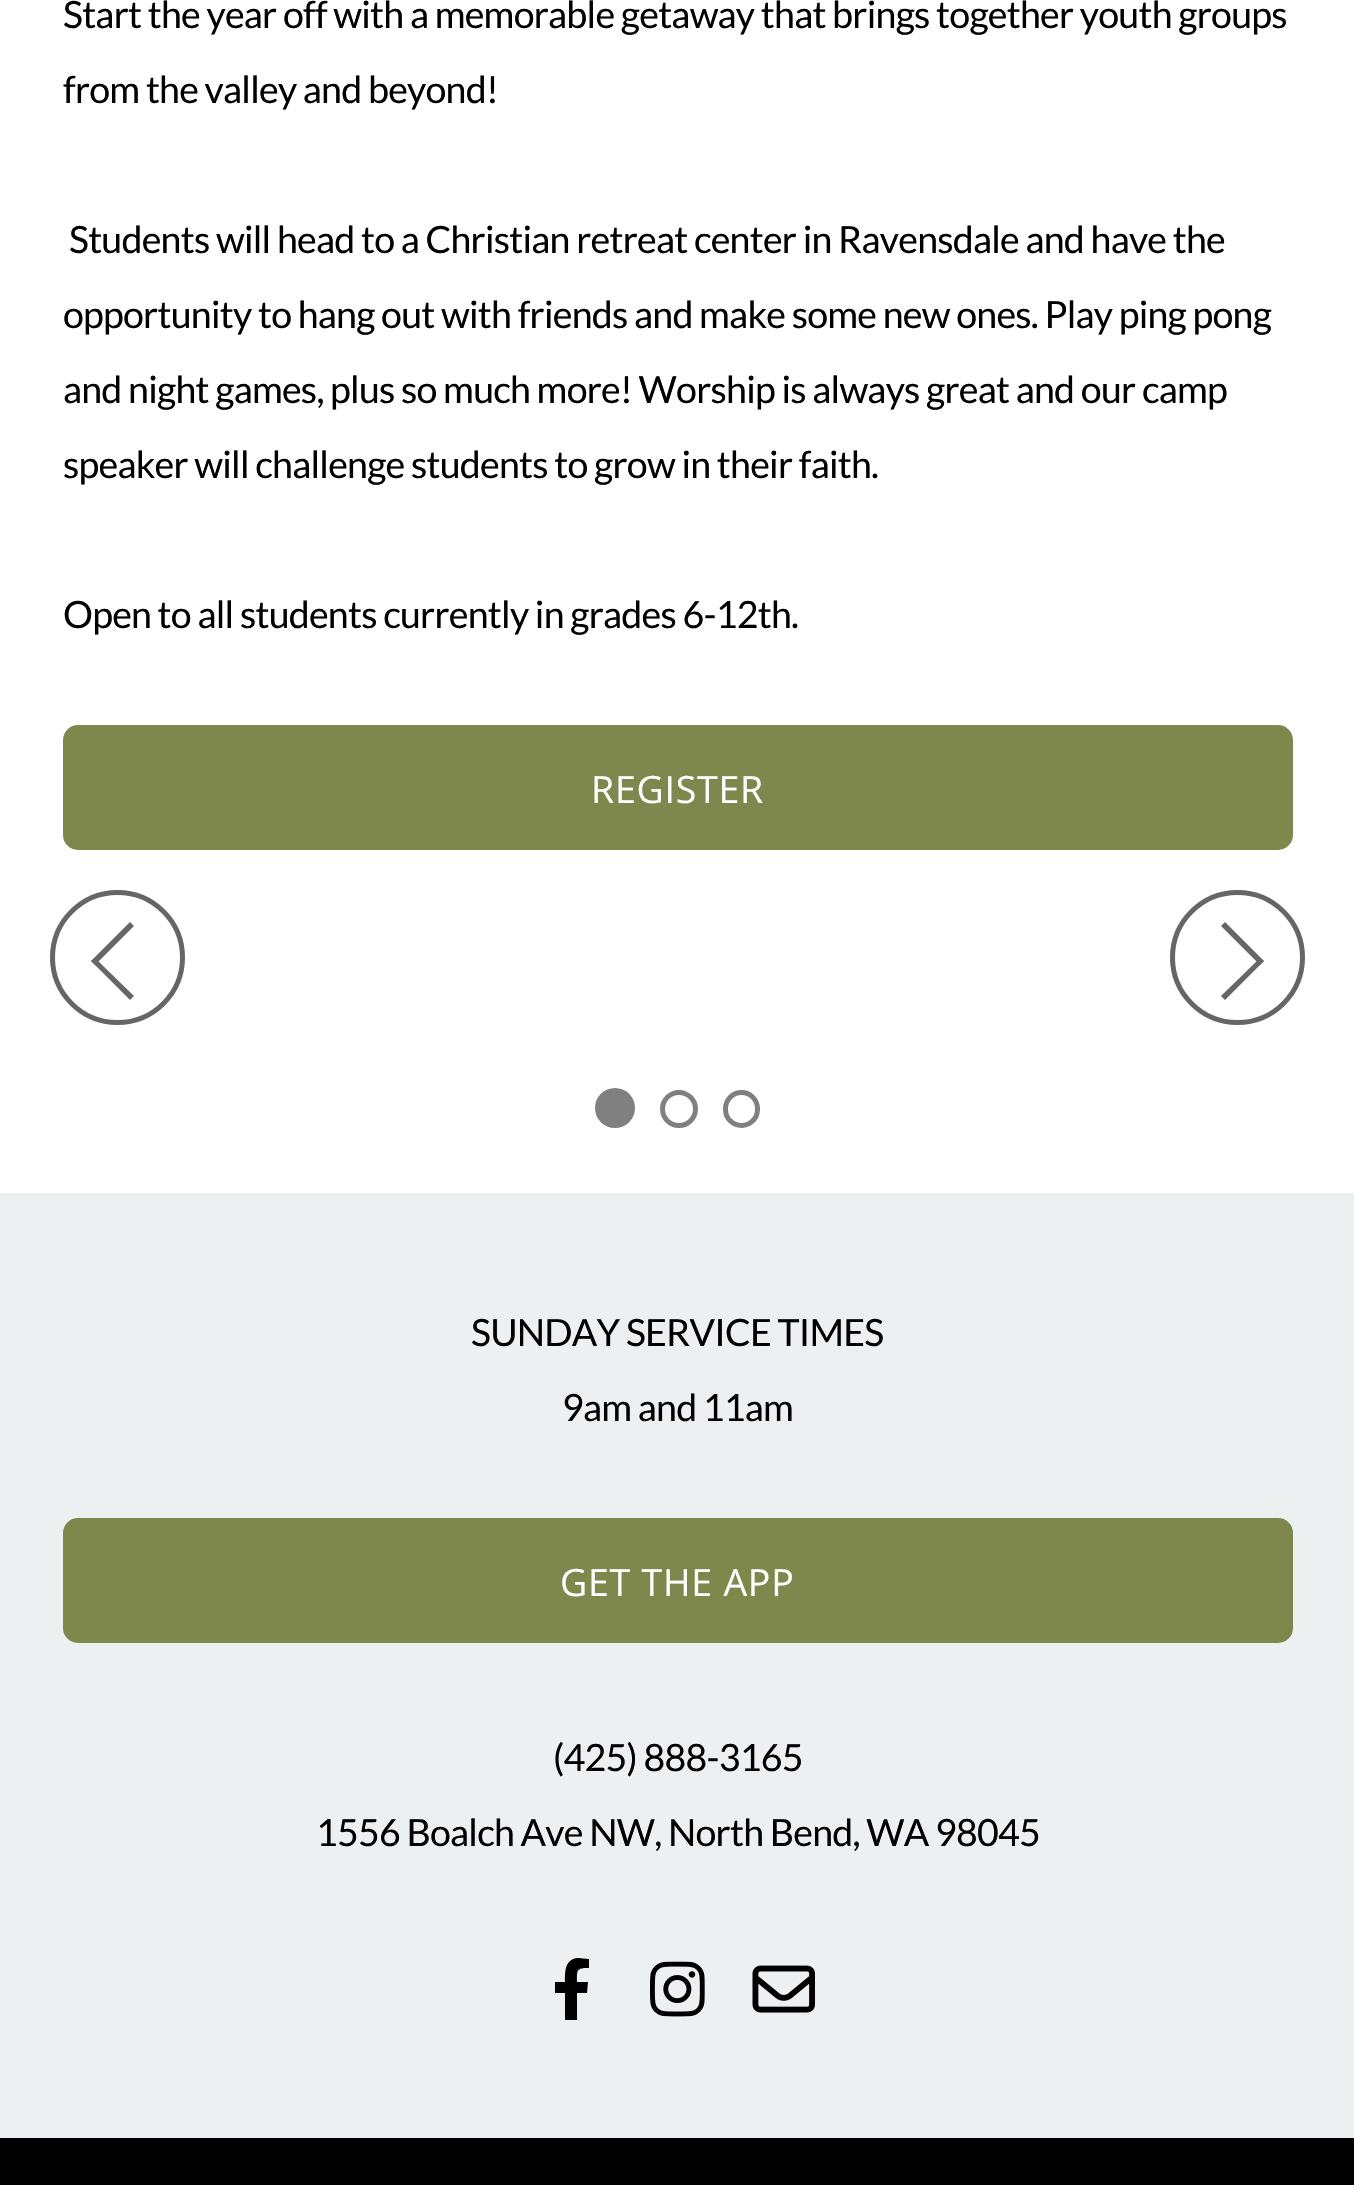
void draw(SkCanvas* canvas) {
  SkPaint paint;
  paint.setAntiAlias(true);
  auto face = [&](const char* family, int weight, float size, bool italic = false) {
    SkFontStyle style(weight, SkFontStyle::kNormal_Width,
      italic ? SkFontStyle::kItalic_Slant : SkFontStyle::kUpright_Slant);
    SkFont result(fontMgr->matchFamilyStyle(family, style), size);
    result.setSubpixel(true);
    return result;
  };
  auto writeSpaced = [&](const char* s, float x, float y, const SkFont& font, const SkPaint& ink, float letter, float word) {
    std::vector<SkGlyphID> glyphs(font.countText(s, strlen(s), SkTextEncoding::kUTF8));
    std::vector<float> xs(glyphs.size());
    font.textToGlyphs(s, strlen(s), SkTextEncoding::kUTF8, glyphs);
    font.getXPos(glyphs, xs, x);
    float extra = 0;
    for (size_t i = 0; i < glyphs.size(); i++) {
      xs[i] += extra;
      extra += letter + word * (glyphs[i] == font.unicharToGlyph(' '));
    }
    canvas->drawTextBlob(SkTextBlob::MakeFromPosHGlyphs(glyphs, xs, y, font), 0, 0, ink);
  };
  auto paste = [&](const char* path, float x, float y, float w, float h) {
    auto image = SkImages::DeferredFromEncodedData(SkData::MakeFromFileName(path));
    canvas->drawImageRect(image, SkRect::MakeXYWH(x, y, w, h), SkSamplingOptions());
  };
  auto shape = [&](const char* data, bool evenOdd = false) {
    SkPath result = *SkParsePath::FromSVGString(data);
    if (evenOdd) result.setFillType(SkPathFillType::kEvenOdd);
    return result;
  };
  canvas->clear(0xffffffff);
  paint.setColor(0xff7e884c);
  canvas->drawRoundRect(SkRect::MakeXYWH(63, 725, 1230, 125), 15, 15, paint);
  paint.setStroke(true);
  paint.setStrokeWidth(5);
  paint.setColor(0xff666666);
  canvas->drawCircle(117.5f, 957.5f, 65, paint);
  paint.setStroke(false);
  canvas->drawPath(shape("M91 961L130 922L134 926L95 965Z"), paint);
  canvas->drawPath(shape("M91 961L95 958L134 996L130 1000Z"), paint);
  paint.setStroke(true);
  canvas->drawCircle(1237.5f, 957.5f, 65, paint);
  paint.setStroke(false);
  canvas->drawPath(shape("M1264 961L1225 1000L1221 996L1260 958Z"), paint);
  canvas->drawPath(shape("M1264 961L1260 965L1221 926L1225 922Z"), paint);
  paint.setColor(0xff808080);
  canvas->drawCircle(615, 1108, 20, paint);
  paint.setStroke(true);
  canvas->drawCircle(679, 1109, 16.5f, paint);
  canvas->drawRoundRect(SkRect::MakeXYWH(725.5f, 1092.5f, 32, 33), 16, 16, paint);
  paint.setStroke(false);
  paint.setColor(0xffecf0f1);
  canvas->drawRect(SkRect::MakeXYWH(0, 1193, 1354, 945), paint);
  paint.setColor(0xff7e884c);
  canvas->drawRoundRect(SkRect::MakeXYWH(63, 1518, 1230, 125), 15, 15, paint);
  paint.setColor(0xff000000);
  canvas->drawPath(shape("M587 1993L588 1982H577C577 1970 576 1968 589 1968V1959L578 1958C565 1959 565 1971 565 1982H555V1993H565V2020H577V1993Z"), paint);
  paste("img/1.png", 650, 1961, 55, 56);
  paste("img/2.png", 752, 1965, 63, 48);
  canvas->drawRect(SkRect::MakeXYWH(0, 2138, 1354, 47), paint);
  auto f0 = face("Lato", 400, 37.5f);
  {
    const struct { const char* s; float x, y; } items[] = {
      {"Start the year off with a memorable getaway that brings together youth groups", 63, 28},
      {"from the valley and beyond!", 63, 103},
      {"Students will head to a Christian retreat center in Ravensdale and have the", 69, 253},
      {"opportunity to hang out with friends and make some new ones. Play ping pong", 63, 328},
      {"and night games, plus so much more! Worship is always great and our camp", 63, 403},
      {"speaker will challenge students to grow in their faith.", 63, 478},
      {"Open to all students currently in grades 6-12th.", 63, 628},
    };
    for (auto [s, x, y] : items) {
      writeSpaced(s, x, y, f0, paint, -0.75f, 0);
    }
  }
  auto f1 = face("Open Sans", 400, 37.5f);
  paint.setColor(0xffffffff);
  writeSpaced("REGISTER", 591, 803, f1, paint, 0.75f, 0);
  paint.setColor(0xff000000);
  writeSpaced("SUNDAY SERVICE TIMES", 471, 1346, f0, paint, -0.75f, 0);
  writeSpaced("9am and 11am", 562, 1421, f0, paint, -0.75f, 0);
  paint.setColor(0xffffffff);
  writeSpaced("GET THE APP", 560, 1596, f1, paint, 0.75f, 0);
  paint.setColor(0xff000000);
  writeSpaced("(425) 888-3165", 553, 1771, f0, paint, -0.75f, 0);
  writeSpaced("1556 Boalch Ave NW, North Bend, WA 98045", 316, 1846, f0, paint, -0.75f, 0);
}
